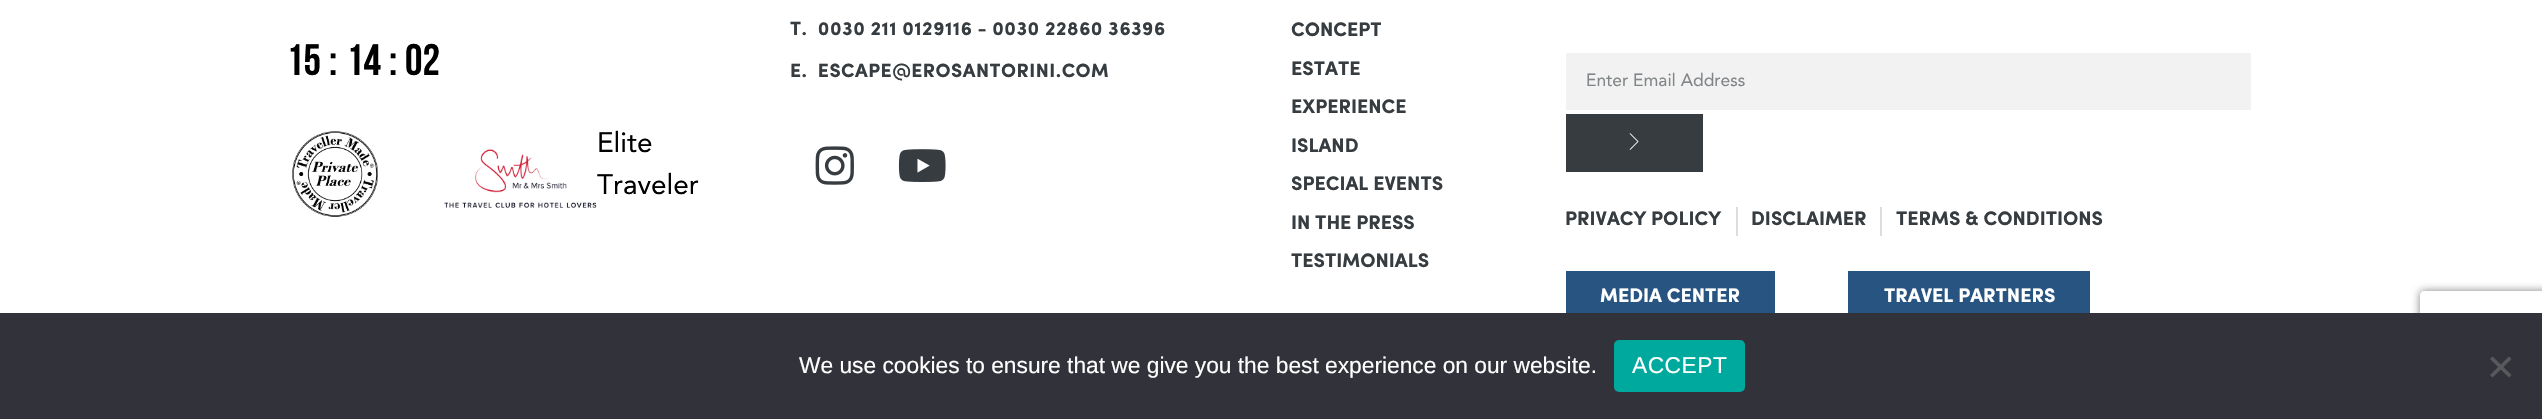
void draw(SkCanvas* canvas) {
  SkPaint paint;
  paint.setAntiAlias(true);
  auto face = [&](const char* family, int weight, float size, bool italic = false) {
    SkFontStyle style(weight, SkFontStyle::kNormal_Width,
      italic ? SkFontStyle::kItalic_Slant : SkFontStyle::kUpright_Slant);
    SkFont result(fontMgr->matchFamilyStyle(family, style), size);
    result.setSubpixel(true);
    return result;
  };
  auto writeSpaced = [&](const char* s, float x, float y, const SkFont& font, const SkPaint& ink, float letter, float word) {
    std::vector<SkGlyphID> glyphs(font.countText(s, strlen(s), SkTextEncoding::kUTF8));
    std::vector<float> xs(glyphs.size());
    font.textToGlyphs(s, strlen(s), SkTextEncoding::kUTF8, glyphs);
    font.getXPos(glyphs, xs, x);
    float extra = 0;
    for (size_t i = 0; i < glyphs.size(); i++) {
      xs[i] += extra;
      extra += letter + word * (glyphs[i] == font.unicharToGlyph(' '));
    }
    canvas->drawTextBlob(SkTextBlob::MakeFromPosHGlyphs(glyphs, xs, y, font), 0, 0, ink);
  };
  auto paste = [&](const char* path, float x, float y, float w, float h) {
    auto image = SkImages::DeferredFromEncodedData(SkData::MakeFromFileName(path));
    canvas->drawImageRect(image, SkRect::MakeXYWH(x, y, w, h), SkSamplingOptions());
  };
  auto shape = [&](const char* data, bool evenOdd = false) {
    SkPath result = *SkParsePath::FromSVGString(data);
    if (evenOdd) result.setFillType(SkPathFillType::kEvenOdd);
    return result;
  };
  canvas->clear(0xffffffff);
  paste("img/1.png", 292, 131, 86, 86);
  paste("img/2.png", 444, 149, 153, 59);
  paste("img/3.png", 815, 146, 39, 39);
  paste("img/4.png", 898, 149, 48, 33);
  paint.setColor(0xfff2f2f2);
  canvas->drawRect(SkRect::MakeXYWH(1566, 53, 685, 57), paint);
  paint.setColor(0xff363c40);
  canvas->drawRect(SkRect::MakeXYWH(1566, 114, 137, 58), paint);
  paste("img/5.png", 1629, 133, 10, 17);
  canvas->save();
  canvas->clipPath(shape("M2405 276H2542V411H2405ZM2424 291H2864C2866 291 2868 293 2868 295V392C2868 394 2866 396 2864 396H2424C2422 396 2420 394 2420 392V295C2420 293 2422 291 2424 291Z", true), true);
  paint.setColor(0xff808080);
  paint.setMaskFilter(SkMaskFilter::MakeBlur(kNormal_SkBlurStyle, 4.5f));
  canvas->drawRoundRect(SkRect::MakeXYWH(2420, 291, 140, 105), 4, 4, paint);
  paint.setMaskFilter(nullptr);
  canvas->restore();
  {
    const struct { float x, y, w, h; SkColor color; } items[] = {
      {1736, 207, 2, 29, 0xffdddddd},
      {1880, 207, 2, 29, 0xffdddddd},
      {1566, 271, 209, 42, 0xff285481},
      {1848, 271, 242, 42, 0xff285481},
      {0, 313, 2542, 106, 0xff32323a},
    };
    for (auto [x, y, w, h, color] : items) {
      paint.setColor(color);
      canvas->drawRect(SkRect::MakeXYWH(x, y, w, h), paint);
    }
  }
  paint.setColor(0xff00a99d);
  canvas->drawRoundRect(SkRect::MakeXYWH(1614, 340, 131, 52), 5, 5, paint);
  paint.setColor(0xff59595d);
  canvas->drawPath(shape("M2509 356.5L2511.5 359L2492.5 377.5L2490 375Z"), paint);
  canvas->drawPath(shape("M2490 359L2492.5 356.5L2511.5 375L2509 377.5Z"), paint);
  auto f0 = face("Bebas Neue", 400, 44);
  paint.setColor(0xff000000);
  {
    const struct { const char* s; float x, y; } items[] = {
      {"15", 286, 75},
      {":", 329, 75},
      {"14", 346, 75},
      {":", 389, 75},
      {"02", 405, 75},
    };
    for (auto [s, x, y] : items) {
      canvas->drawString(s, x, y, f0, paint);
    }
  }
  auto f1 = face("Avenir", 400, 28);
  canvas->drawString("Elite", 597, 152, f1, paint);
  canvas->drawString("Traveler", 597, 194, f1, paint);
  auto f2 = face("Sofia", 700, 19.25f);
  paint.setColor(0xff363c40);
  writeSpaced("T.  0030 211 0129116 - 0030 22860 36396", 790, 35, f2, paint, 0.5f, 0);
  writeSpaced("E.  ESCAPE@EROSANTORINI.COM", 790, 77, f2, paint, 0.5f, 0);
  auto f3 = face("Sofia", 700, 19.6f);
  {
    const struct { const char* s; float x, y; } items[] = {
      {"CONCEPT", 1291, 36},
      {"ESTATE", 1291, 75},
      {"EXPERIENCE", 1291, 113},
      {"ISLAND", 1291, 152},
      {"SPECIAL EVENTS", 1291, 190},
      {"IN THE PRESS", 1291, 229},
      {"TESTIMONIALS", 1291, 267},
    };
    for (auto [s, x, y] : items) {
      canvas->drawString(s, x, y, f3, paint);
    }
  }
  auto f4 = face("Avenir", 400, 17.5f);
  paint.setColor(0xff818587);
  canvas->drawString("Enter Email Address", 1586, 86, f4, paint);
  paint.setColor(0xff363c40);
  {
    const struct { const char* s; float x, y; } items[] = {
      {"PRIVACY POLICY", 1565, 225},
      {"DISCLAIMER", 1751, 225},
      {"TERMS & CONDITIONS", 1896, 225},
    };
    for (auto [s, x, y] : items) {
      canvas->drawString(s, x, y, f3, paint);
    }
  }
  paint.setColor(0xffffffff);
  canvas->drawString("MEDIA CENTER", 1600, 302, f3, paint);
  canvas->drawString("TRAVEL PARTNERS", 1884, 302, f3, paint);
  auto f5 = face("Liberation Sans", 400, 22.75f);
  canvas->drawString("We use cookies to ensure that we give you the best experience on our website.", 799, 373, f5, paint);
  writeSpaced("ACCEPT", 1632, 373, f5, paint, 0.5f, 0);
}
